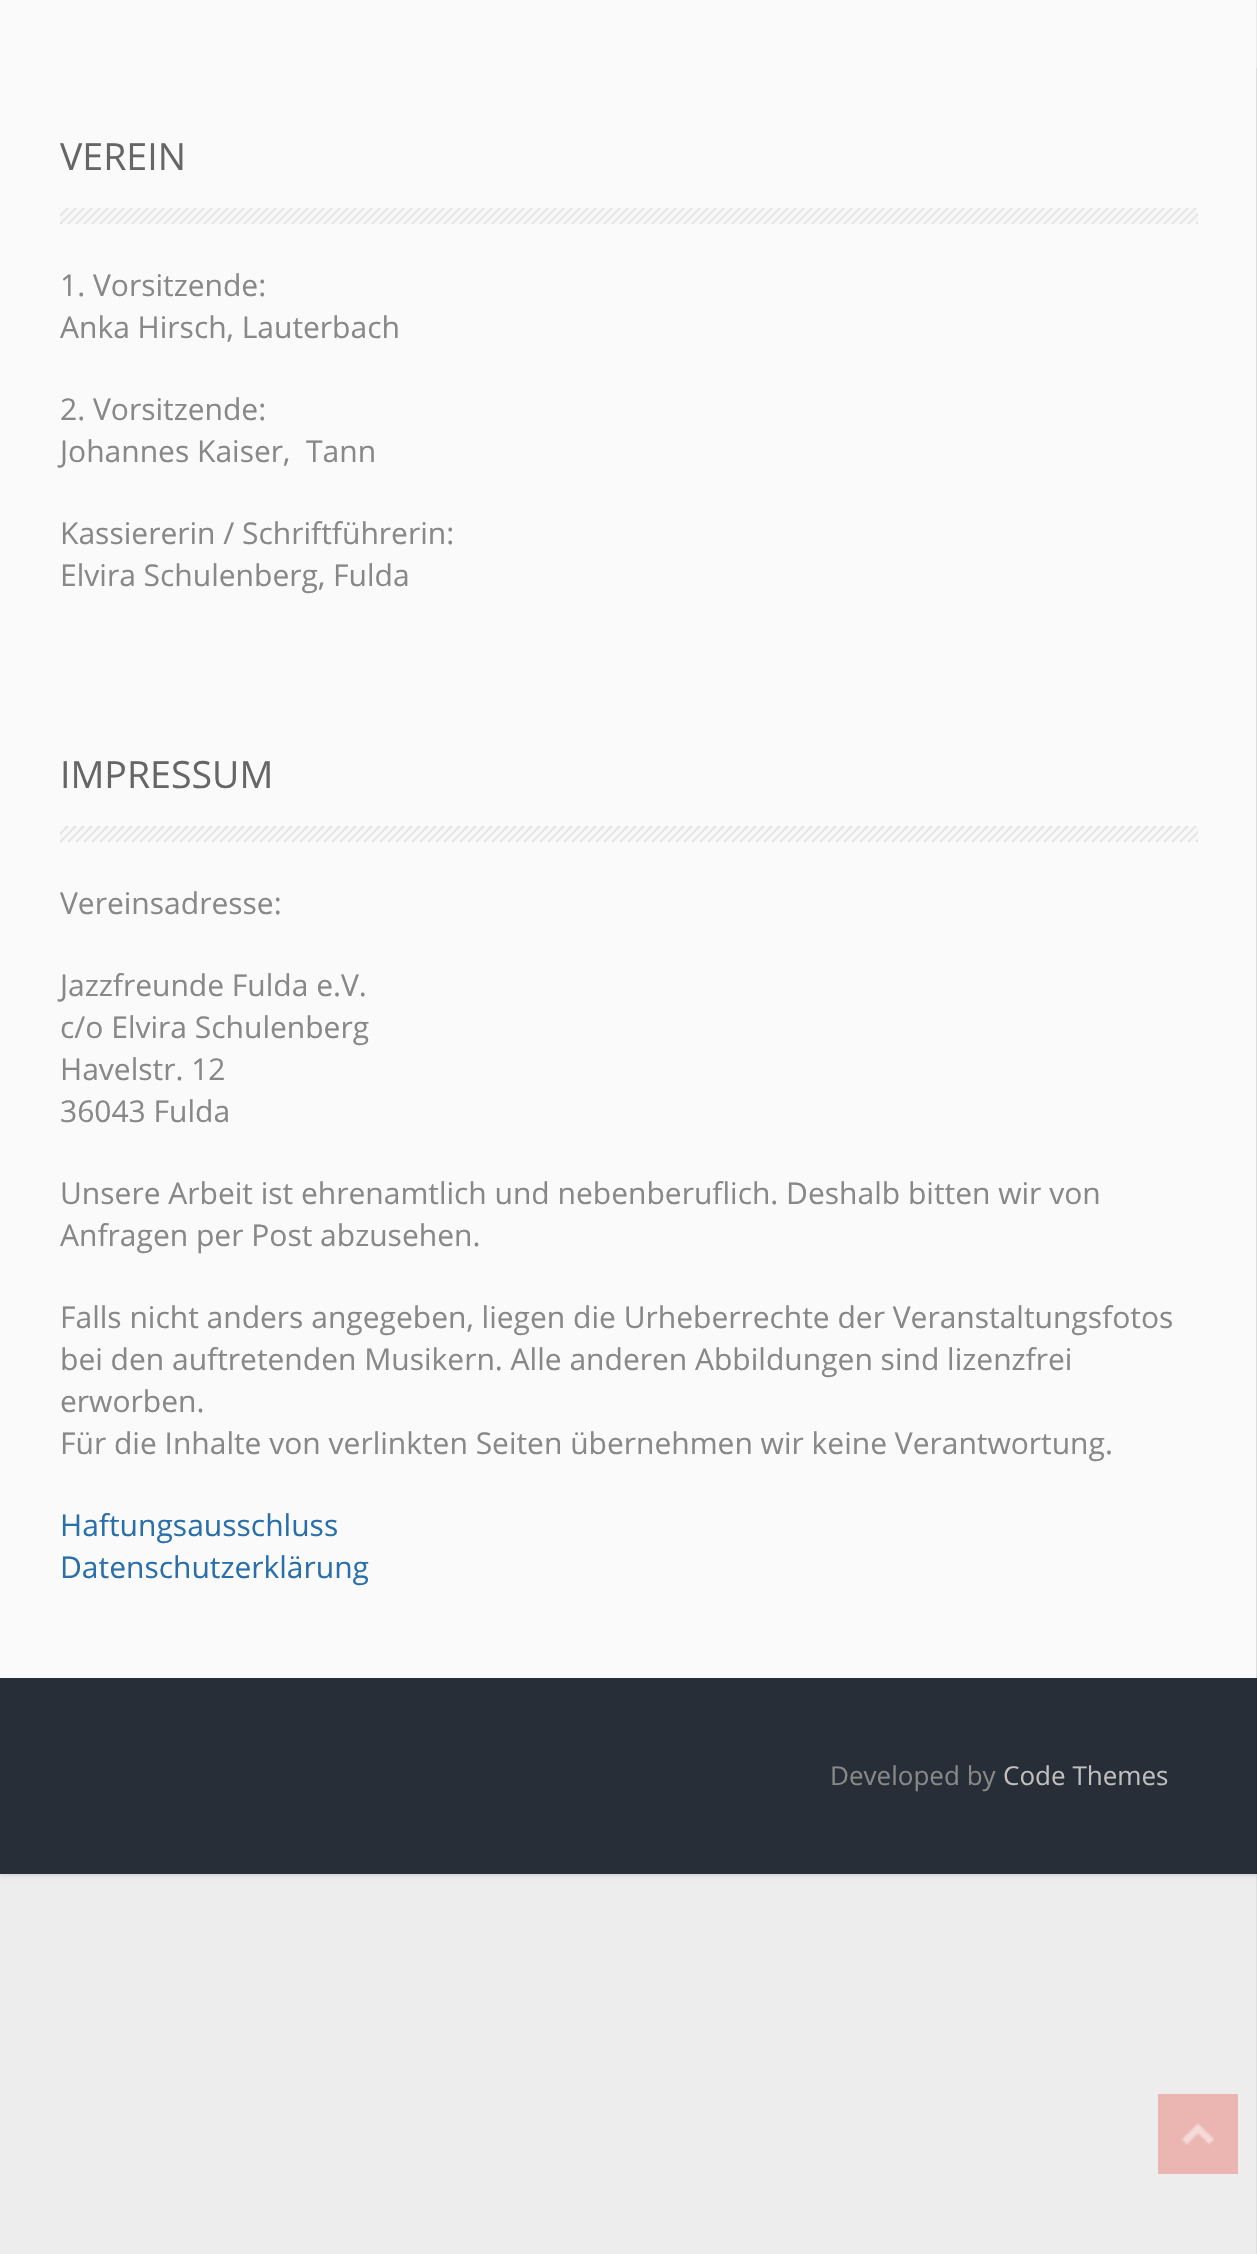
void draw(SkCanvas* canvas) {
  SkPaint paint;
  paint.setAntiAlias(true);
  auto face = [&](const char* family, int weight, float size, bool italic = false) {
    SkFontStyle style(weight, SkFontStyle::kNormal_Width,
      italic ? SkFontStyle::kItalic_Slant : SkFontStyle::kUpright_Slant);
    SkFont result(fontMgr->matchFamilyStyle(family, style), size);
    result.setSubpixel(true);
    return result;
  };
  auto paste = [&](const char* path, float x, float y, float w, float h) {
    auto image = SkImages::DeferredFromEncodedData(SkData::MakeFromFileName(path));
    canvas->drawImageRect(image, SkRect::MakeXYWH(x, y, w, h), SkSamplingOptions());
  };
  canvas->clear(0xffededed);
  paint.setColor(0x1a000000);
  paint.setMaskFilter(SkMaskFilter::MakeBlur(kNormal_SkBlurStyle, 2));
  canvas->drawRect(SkRect::MakeXYWH(0, -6, 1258, 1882), paint);
  paint.setMaskFilter(nullptr);
  paint.setColor(0xfffafafa);
  canvas->drawRect(SkRect::MakeXYWH(0, 0, 1256, 1678), paint);
  paste("img/1.png", 60, 208, 1138, 16);
  {
    const struct { float x, y, w, h; SkColor color; } items[] = {
      {1256, 0, 1, 1678, 0xffebebeb},
      {0, 1678, 1257, 196, 0xff272e37},
      {1256, 68, 1, 2186, 0x0f000000},
    };
    for (auto [x, y, w, h, color] : items) {
      paint.setColor(color);
      canvas->drawRect(SkRect::MakeXYWH(x, y, w, h), paint);
    }
  }
  paste("img/1.png", 60, 826, 1138, 16);
  paint.setColor(0xffebb6b1);
  canvas->drawRect(SkRect::MakeXYWH(1158, 2094, 80, 80), paint);
  paste("img/2.png", 1182, 2123, 32, 22);
  auto f0 = face("Open Sans", 400, 37.5f);
  paint.setColor(0xff666666);
  canvas->drawString("VEREIN", 60, 170, f0, paint);
  auto f1 = face("Open Sans", 400, 30);
  paint.setColor(0xff888888);
  {
    const struct { const char* s; float x, y; } items[] = {
      {"1. Vorsitzende:", 60, 296},
      {"Anka Hirsch, Lauterbach", 60, 338},
      {"2. Vorsitzende:", 60, 420},
      {"Johannes Kaiser,  Tann", 60, 462},
      {"Kassiererin / Schriftführerin:", 60, 544},
      {"Elvira Schulenberg, Fulda", 60, 586},
    };
    for (auto [s, x, y] : items) {
      canvas->drawString(s, x, y, f1, paint);
    }
  }
  paint.setColor(0xff666666);
  canvas->drawString("IMPRESSUM", 60, 788, f0, paint);
  paint.setColor(0xff888888);
  {
    const struct { const char* s; float x, y; } items[] = {
      {"Vereinsadresse:", 60, 914},
      {"Jazzfreunde Fulda e.V.", 60, 996},
      {"c/o Elvira Schulenberg", 60, 1038},
      {"Havelstr. 12", 60, 1080},
      {"36043 Fulda", 60, 1122},
      {"Unsere Arbeit ist ehrenamtlich und nebenberuflich. Deshalb bitten wir von", 60, 1204},
      {"Anfragen per Post abzusehen.", 60, 1246},
      {"Falls nicht anders angegeben, liegen die Urheberrechte der Veranstaltungsfotos", 60, 1328},
      {"bei den auftretenden Musikern. Alle anderen Abbildungen sind lizenzfrei", 60, 1370},
      {"erworben.", 60, 1412},
      {"Für die Inhalte von verlinkten Seiten übernehmen wir keine Verantwortung.", 60, 1454},
    };
    for (auto [s, x, y] : items) {
      canvas->drawString(s, x, y, f1, paint);
    }
  }
  paint.setColor(0xff296faa);
  canvas->drawString("Haftungsausschluss", 60, 1536, f1, paint);
  canvas->drawString("Datenschutzerklärung", 60, 1578, f1, paint);
  auto f2 = face("Open Sans", 400, 26);
  paint.setColor(0xff888888);
  canvas->drawString("Developed by", 830, 1785, f2, paint);
  paint.setColor(0xffbfbfbf);
  canvas->drawString("Code Themes", 1003, 1785, f2, paint);
}
